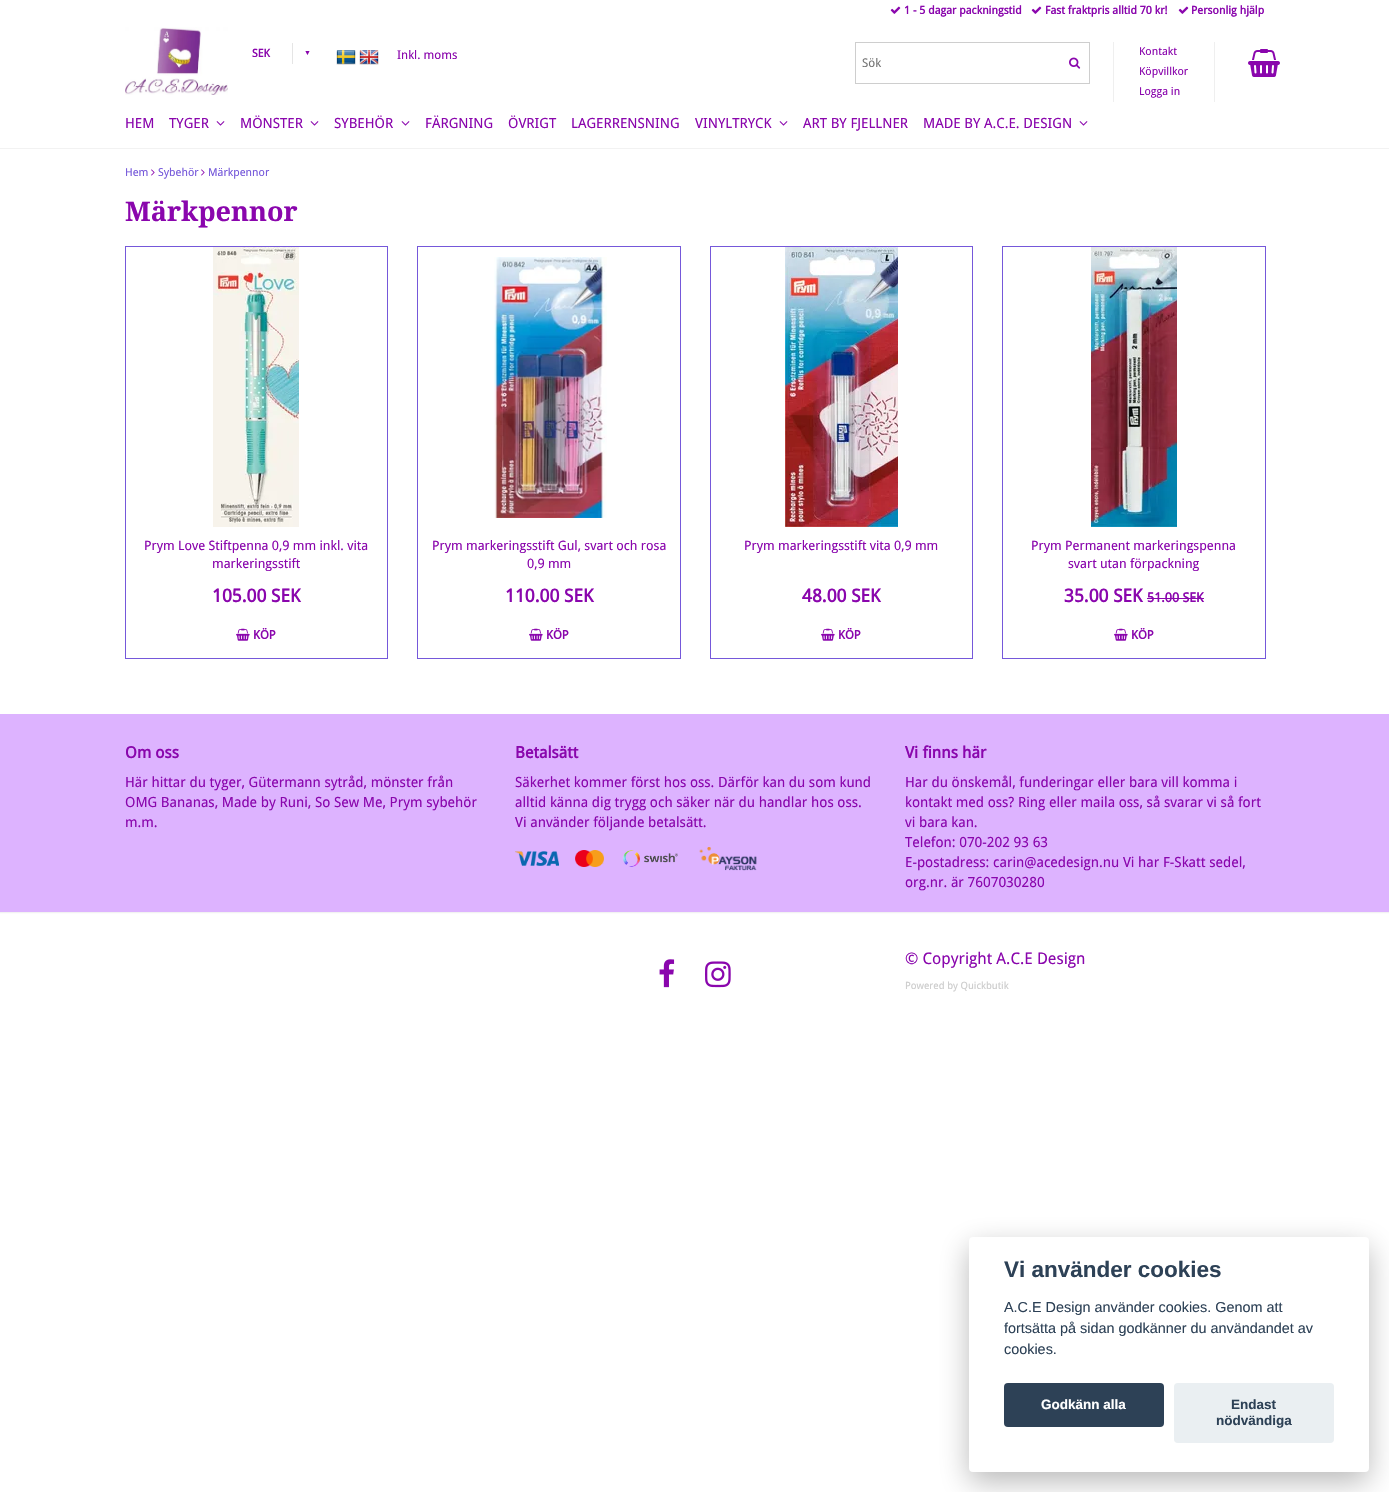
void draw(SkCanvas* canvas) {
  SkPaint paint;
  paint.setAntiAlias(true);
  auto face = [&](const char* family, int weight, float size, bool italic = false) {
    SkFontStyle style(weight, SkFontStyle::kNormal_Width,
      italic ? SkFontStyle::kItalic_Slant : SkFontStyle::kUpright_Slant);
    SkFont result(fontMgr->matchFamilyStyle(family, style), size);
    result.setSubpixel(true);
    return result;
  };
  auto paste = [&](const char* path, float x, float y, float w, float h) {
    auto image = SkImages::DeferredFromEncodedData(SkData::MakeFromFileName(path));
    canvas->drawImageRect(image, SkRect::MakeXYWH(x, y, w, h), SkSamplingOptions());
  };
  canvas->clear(0xffffffff);
  canvas->save();
  canvas->clipRect(SkRect::MakeXYWH(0, 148, 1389, 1));
  paint.setColor(0x0d000000);
  paint.setMaskFilter(SkMaskFilter::MakeBlur(kNormal_SkBlurStyle, 0.5f));
  canvas->drawRect(SkRect::MakeXYWH(0, 1, 1389, 148), paint);
  paint.setMaskFilter(nullptr);
  canvas->restore();
  paste("img/1.png", 125, 27, 103, 68);
  paint.setColor(0xffe5e5e5);
  canvas->drawRect(SkRect::MakeXYWH(292, 43, 1, 21), paint);
  paste("img/2.png", 336, 50, 20, 15);
  paste("img/3.png", 359, 50, 20, 15);
  paste("img/4.png", 890, 6, 11, 8);
  paste("img/4.png", 1031, 6, 11, 8);
  paste("img/4.png", 1178, 6, 11, 8);
  paint.setStroke(true);
  paint.setStrokeWidth(1);
  paint.setColor(0xffcecece);
  canvas->drawRect(SkRect::MakeXYWH(855.5f, 42.5f, 234, 41), paint);
  paste("img/5.png", 1069, 57, 12, 12);
  paint.setStroke(false);
  paint.setColor(0xffefefef);
  canvas->drawRect(SkRect::MakeXYWH(1214, 42, 1, 60), paint);
  canvas->drawRect(SkRect::MakeXYWH(1113, 42, 1, 60), paint);
  paste("img/6.png", 1248, 49, 32, 28);
  paste("img/7.png", 216, 121, 9, 5);
  paste("img/7.png", 310, 121, 9, 5);
  paste("img/7.png", 401, 121, 9, 5);
  paste("img/7.png", 779, 121, 9, 5);
  paste("img/7.png", 1079, 121, 9, 5);
  paste("img/8.png", 151, 169, 4, 7);
  paste("img/8.png", 201, 169, 4, 7);
  paint.setStroke(true);
  paint.setColor(0xff7558da);
  canvas->drawRect(SkRect::MakeXYWH(125.5f, 246.5f, 262, 412), paint);
  paste("img/9.png", 213, 247, 86, 280);
  paste("img/10.png", 236, 628, 14, 13);
  canvas->drawRect(SkRect::MakeXYWH(417.5f, 246.5f, 263, 412), paint);
  paste("img/11.png", 494, 257, 113, 261);
  paste("img/10.png", 529, 628, 14, 13);
  canvas->drawRect(SkRect::MakeXYWH(710.5f, 246.5f, 262, 412), paint);
  paste("img/12.png", 785, 247, 113, 280);
  paste("img/10.png", 821, 628, 14, 13);
  canvas->drawRect(SkRect::MakeXYWH(1002.5f, 246.5f, 263, 412), paint);
  paste("img/13.png", 1091, 247, 86, 280);
  paint.setStroke(false);
  paint.setColor(0xff8a06ad);
  canvas->drawRect(SkRect::MakeXYWH(1147, 598, 57, 1), paint);
  paste("img/10.png", 1114, 628, 14, 13);
  paint.setColor(0x0d000000);
  paint.setMaskFilter(SkMaskFilter::MakeBlur(kNormal_SkBlurStyle, 0.5f));
  canvas->drawRect(SkRect::MakeXYWH(0, 715, 1389, 198), paint);
  paint.setMaskFilter(nullptr);
  paint.setColor(0xffddb3ff);
  canvas->drawRect(SkRect::MakeXYWH(0, 714, 1389, 198), paint);
  paste("img/14.png", 515, 851, 44, 15);
  paste("img/15.png", 575, 850, 29, 17);
  paste("img/16.png", 623, 850, 55, 17);
  paste("img/17.png", 699, 847, 58, 24);
  paste("img/18.png", 659, 959, 16, 29);
  paste("img/19.png", 705, 961, 26, 27);
  paint.setColor(0x47020203);
  paint.setMaskFilter(SkMaskFilter::MakeBlur(kNormal_SkBlurStyle, 15));
  canvas->drawRoundRect(SkRect::MakeXYWH(969, 1247, 400, 235), 4, 4, paint);
  paint.setMaskFilter(nullptr);
  paint.setColor(0xffffffff);
  canvas->drawRoundRect(SkRect::MakeXYWH(969, 1237, 400, 235), 4, 4, paint);
  paint.setColor(0xff2d4156);
  canvas->drawRoundRect(SkRect::MakeXYWH(1004, 1383, 160, 44), 4, 4, paint);
  paint.setColor(0xffeaeff2);
  canvas->drawRoundRect(SkRect::MakeXYWH(1174, 1383, 160, 60), 4, 4, paint);
  auto f0 = face("Droid Sans", 700, 11);
  paint.setColor(0xff8a06ad);
  canvas->drawString("SEK", 252, 57, f0, paint);
  auto f1 = face("Liberation Sans", 700, 7);
  canvas->drawString("▼", 304, 55, f1, paint);
  auto f2 = face("Droid Sans", 400, 12);
  canvas->drawString("Inkl. moms", 397, 59, f2, paint);
  {
    const struct { const char* s; float x, y; } items[] = {
      {"1 - 5 dagar packningstid", 904, 14},
      {"Fast fraktpris alltid 70 kr!", 1045, 14},
      {"Personlig hjälp", 1191, 14},
    };
    for (auto [s, x, y] : items) {
      canvas->drawString(s, x, y, f0, paint);
    }
  }
  paint.setColor(0xff757575);
  canvas->drawString("Sök", 862, 67, f2, paint);
  auto f3 = face("Droid Sans", 400, 11);
  paint.setColor(0xff8a06ad);
  {
    const struct { const char* s; float x, y; } items[] = {
      {"Kontakt", 1139, 55},
      {"Köpvillkor", 1139, 75},
      {"Logga in", 1139, 95},
    };
    for (auto [s, x, y] : items) {
      canvas->drawString(s, x, y, f3, paint);
    }
  }
  auto f4 = face("Droid Sans", 400, 14);
  {
    const struct { const char* s; float x, y; } items[] = {
      {"HEM", 125, 128},
      {"TYGER", 169, 128},
      {"MÖNSTER", 240, 128},
      {"SYBEHÖR", 334, 128},
      {"FÄRGNING", 425, 128},
      {"ÖVRIGT", 508, 128},
      {"LAGERRENSNING", 571, 128},
      {"VINYLTRYCK", 695, 128},
      {"ART BY FJELLNER", 803, 128},
      {"MADE BY A.C.E. DESIGN", 923, 128},
    };
    for (auto [s, x, y] : items) {
      canvas->drawString(s, x, y, f4, paint);
    }
  }
  paint.setColor(0xff7558da);
  {
    const struct { const char* s; float x, y; } items[] = {
      {"Hem", 125, 176},
      {"Sybehör", 158, 176},
      {"Märkpennor", 208, 176},
    };
    for (auto [s, x, y] : items) {
      canvas->drawString(s, x, y, f3, paint);
    }
  }
  auto f5 = face("Droid Serif", 700, 27);
  paint.setColor(0xff8a06ad);
  canvas->drawString("Märkpennor", 125, 221, f5, paint);
  auto f6 = face("Droid Sans", 400, 13);
  canvas->drawString("Prym Love Stiftpenna 0,9 mm inkl. vita", 144, 550, f6, paint);
  canvas->drawString("markeringsstift", 212, 568, f6, paint);
  auto f7 = face("Droid Sans", 700, 18);
  canvas->drawString("105.00 SEK", 212, 602, f7, paint);
  auto f8 = face("Droid Sans", 700, 12);
  canvas->drawString("KÖP", 253, 639, f8, paint);
  canvas->drawString("Prym markeringsstift Gul, svart och rosa", 432, 550, f6, paint);
  canvas->drawString("0,9 mm", 527, 568, f6, paint);
  canvas->drawString("110.00 SEK", 505, 602, f7, paint);
  canvas->drawString("KÖP", 546, 639, f8, paint);
  canvas->drawString("Prym markeringsstift vita 0,9 mm", 744, 550, f6, paint);
  canvas->drawString("48.00 SEK", 802, 602, f7, paint);
  canvas->drawString("KÖP", 838, 639, f8, paint);
  canvas->drawString("Prym Permanent markeringspenna", 1031, 550, f6, paint);
  canvas->drawString("svart utan förpackning", 1068, 568, f6, paint);
  canvas->drawString("35.00 SEK", 1064, 602, f7, paint);
  auto f9 = face("Droid Sans", 700, 13);
  canvas->drawString("51.00 SEK", 1147, 602, f9, paint);
  canvas->drawString("KÖP", 1131, 639, f8, paint);
  auto f10 = face("Droid Sans", 700, 16);
  canvas->drawString("Om oss", 125, 758, f10, paint);
  {
    const struct { const char* s; float x, y; } items[] = {
      {"Här hittar du tyger, Gütermann sytråd, mönster från", 125, 787},
      {"OMG Bananas, Made by Runi, So Sew Me, Prym sybehör", 125, 807},
      {"m.m.", 125, 827},
    };
    for (auto [s, x, y] : items) {
      canvas->drawString(s, x, y, f4, paint);
    }
  }
  canvas->drawString("Betalsätt", 515, 758, f10, paint);
  {
    const struct { const char* s; float x, y; } items[] = {
      {"Säkerhet kommer först hos oss. Därför kan du som kund", 515, 787},
      {"alltid känna dig trygg och säker när du handlar hos oss.", 515, 807},
      {"Vi använder följande betalsätt.", 515, 827},
    };
    for (auto [s, x, y] : items) {
      canvas->drawString(s, x, y, f4, paint);
    }
  }
  canvas->drawString("Vi finns här", 905, 758, f10, paint);
  {
    const struct { const char* s; float x, y; } items[] = {
      {"Har du önskemål, funderingar eller bara vill komma i", 905, 787},
      {"kontakt med oss? Ring eller maila oss, så svarar vi så fort", 905, 807},
      {"vi bara kan.", 905, 827},
      {"Telefon: 070-202 93 63", 905, 847},
      {"E-postadress: carin@acedesign.nu Vi har F-Skatt sedel,", 905, 867},
      {"org.nr. är 7607030280", 905, 887},
    };
    for (auto [s, x, y] : items) {
      canvas->drawString(s, x, y, f4, paint);
    }
  }
  auto f11 = face("Droid Sans", 400, 16);
  canvas->drawString("© Copyright A.C.E Design", 905, 964, f11, paint);
  auto f12 = face("Droid Sans", 400, 10);
  paint.setColor(0xffcccccc);
  canvas->drawString("Powered by Quickbutik", 905, 989, f12, paint);
  auto f13 = face("Liberation Sans", 700, 22.5f);
  paint.setColor(0xff2d4156);
  canvas->drawString("Vi använder cookies", 1004, 1277, f13, paint);
  auto f14 = face("Liberation Sans", 400, 14.4f);
  {
    const struct { const char* s; float x, y; } items[] = {
      {"A.C.E Design använder cookies. Genom att", 1004, 1312},
      {"fortsätta på sidan godkänner du användandet av", 1004, 1333},
      {"cookies.", 1004, 1354},
    };
    for (auto [s, x, y] : items) {
      canvas->drawString(s, x, y, f14, paint);
    }
  }
  auto f15 = face("Liberation Sans", 700, 13.5f);
  paint.setColor(0xffffffff);
  canvas->drawString("Godkänn alla", 1041, 1409, f15, paint);
  paint.setColor(0xff2d4156);
  canvas->drawString("Endast", 1231, 1409, f15, paint);
  canvas->drawString("nödvändiga", 1216, 1425, f15, paint);
}
